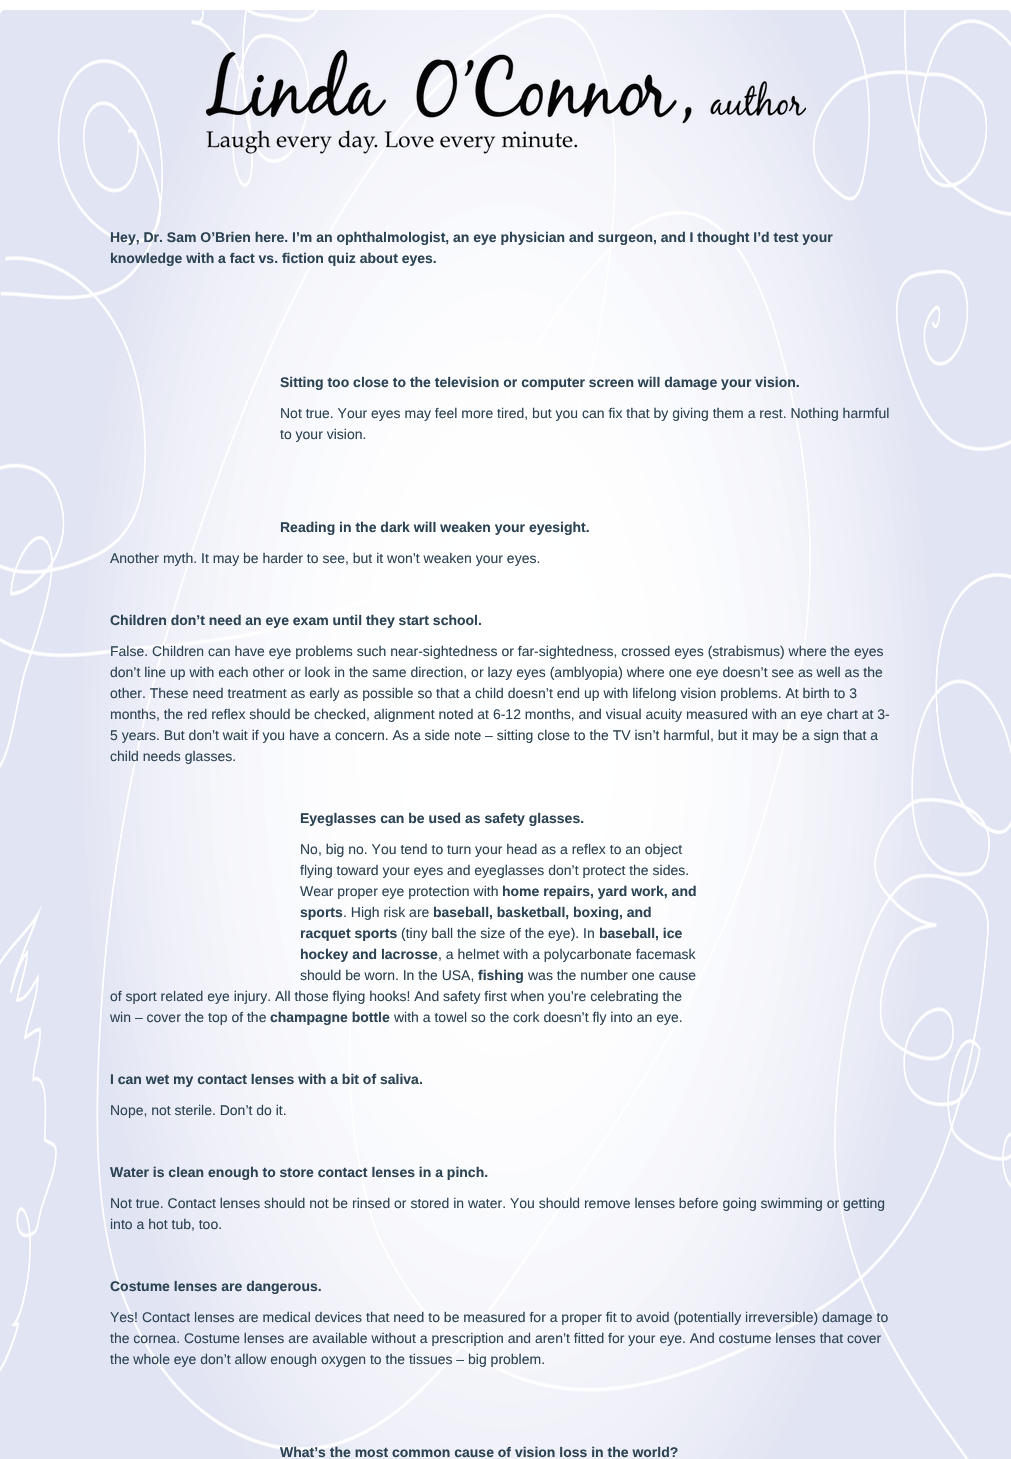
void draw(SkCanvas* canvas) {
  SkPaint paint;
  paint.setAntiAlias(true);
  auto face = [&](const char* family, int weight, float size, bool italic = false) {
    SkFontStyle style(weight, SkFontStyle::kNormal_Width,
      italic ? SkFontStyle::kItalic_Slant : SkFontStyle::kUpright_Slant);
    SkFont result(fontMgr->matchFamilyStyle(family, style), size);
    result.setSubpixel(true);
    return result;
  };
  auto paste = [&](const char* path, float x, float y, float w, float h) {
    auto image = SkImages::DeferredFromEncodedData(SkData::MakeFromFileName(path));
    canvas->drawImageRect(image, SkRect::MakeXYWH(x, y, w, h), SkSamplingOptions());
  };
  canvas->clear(0xffffffff);
  paste("img/1.png", 0, 10, 1011, 1449);
  paste("img/2.png", 206, 50, 600, 104);
  auto f0 = face("Liberation Sans", 700, 14);
  paint.setColor(0xff2c4353);
  {
    const struct { const char* s; float x, y; } items[] = {
      {"Hey, Dr. Sam O’Brien here. I’m an ophthalmologist, an eye physician and surgeon, and I thought I’d test your", 110, 242},
      {"knowledge with a fact vs. fiction quiz about eyes.", 110, 263},
      {"Sitting too close to the television or computer screen will damage your vision.", 280, 387},
    };
    for (auto [s, x, y] : items) {
      canvas->drawString(s, x, y, f0, paint);
    }
  }
  auto f1 = face("Liberation Sans", 400, 14);
  canvas->drawString("Not true. Your eyes may feel more tired, but you can fix that by giving them a rest. Nothing harmful", 280, 418, f1, paint);
  canvas->drawString("to your vision.", 280, 439, f1, paint);
  canvas->drawString("Reading in the dark will weaken your eyesight.", 280, 532, f0, paint);
  canvas->drawString("Another myth. It may be harder to see, but it won’t weaken your eyes.", 110, 563, f1, paint);
  canvas->drawString("Children don’t need an eye exam until they start school.", 110, 625, f0, paint);
  {
    const struct { const char* s; float x, y; } items[] = {
      {"False. Children can have eye problems such near-sightedness or far-sightedness, crossed eyes (strabismus) where the eyes", 110, 656},
      {"don’t line up with each other or look in the same direction, or lazy eyes (amblyopia) where one eye doesn’t see as well as the", 110, 677},
      {"other. These need treatment as early as possible so that a child doesn’t end up with lifelong vision problems. At birth to 3", 110, 698},
      {"months, the red reflex should be checked, alignment noted at 6-12 months, and visual acuity measured with an eye chart at 3-", 110, 719},
      {"5 years. But don’t wait if you have a concern. As a side note – sitting close to the TV isn’t harmful, but it may be a sign that a", 110, 740},
      {"child needs glasses.", 110, 761},
    };
    for (auto [s, x, y] : items) {
      canvas->drawString(s, x, y, f1, paint);
    }
  }
  canvas->drawString("Eyeglasses can be used as safety glasses.", 300, 823, f0, paint);
  {
    const struct { const char* s; float x, y; } items[] = {
      {"No, big no. You tend to turn your head as a reflex to an object", 300, 854},
      {"flying toward your eyes and eyeglasses don’t protect the sides.", 300, 875},
      {"Wear proper eye protection with", 300, 896},
    };
    for (auto [s, x, y] : items) {
      canvas->drawString(s, x, y, f1, paint);
    }
  }
  canvas->drawString("home repairs, yard work, and", 502, 896, f0, paint);
  canvas->drawString("sports", 300, 917, f0, paint);
  canvas->drawString(". High risk are", 343, 917, f1, paint);
  canvas->drawString("baseball, basketball, boxing, and", 433, 917, f0, paint);
  canvas->drawString("racquet sports", 300, 938, f0, paint);
  canvas->drawString("(tiny ball the size of the eye). In", 401, 938, f1, paint);
  canvas->drawString("baseball, ice", 599, 938, f0, paint);
  canvas->drawString("hockey and lacrosse", 300, 959, f0, paint);
  canvas->drawString(", a helmet with a polycarbonate facemask", 438, 959, f1, paint);
  canvas->drawString("should be worn. In the USA,", 300, 980, f1, paint);
  canvas->drawString("fishing", 478, 980, f0, paint);
  {
    const struct { const char* s; float x, y; } items[] = {
      {"was the number one cause", 528, 980},
      {"of sport related eye injury. All those flying hooks! And safety first when you’re celebrating the", 110, 1001},
      {"win – cover the top of the", 110, 1022},
    };
    for (auto [s, x, y] : items) {
      canvas->drawString(s, x, y, f1, paint);
    }
  }
  canvas->drawString("champagne bottle", 270, 1022, f0, paint);
  canvas->drawString("with a towel so the cork doesn’t fly into an eye.", 394, 1022, f1, paint);
  canvas->drawString("I can wet my contact lenses with a bit of saliva.", 110, 1084, f0, paint);
  canvas->drawString("Nope, not sterile. Don’t do it.", 110, 1115, f1, paint);
  canvas->drawString("Water is clean enough to store contact lenses in a pinch.", 110, 1177, f0, paint);
  canvas->drawString("Not true. Contact lenses should not be rinsed or stored in water. You should remove lenses before going swimming or getting", 110, 1208, f1, paint);
  canvas->drawString("into a hot tub, too.", 110, 1229, f1, paint);
  canvas->drawString("Costume lenses are dangerous.", 110, 1291, f0, paint);
  {
    const struct { const char* s; float x, y; } items[] = {
      {"Yes! Contact lenses are medical devices that need to be measured for a proper fit to avoid (potentially irreversible) damage to", 110, 1322},
      {"the cornea. Costume lenses are available without a prescription and aren’t fitted for your eye. And costume lenses that cover", 110, 1343},
      {"the whole eye don’t allow enough oxygen to the tissues – big problem.", 110, 1364},
    };
    for (auto [s, x, y] : items) {
      canvas->drawString(s, x, y, f1, paint);
    }
  }
  canvas->drawString("What’s the most common cause of vision loss in the world?", 280, 1457, f0, paint);
}
